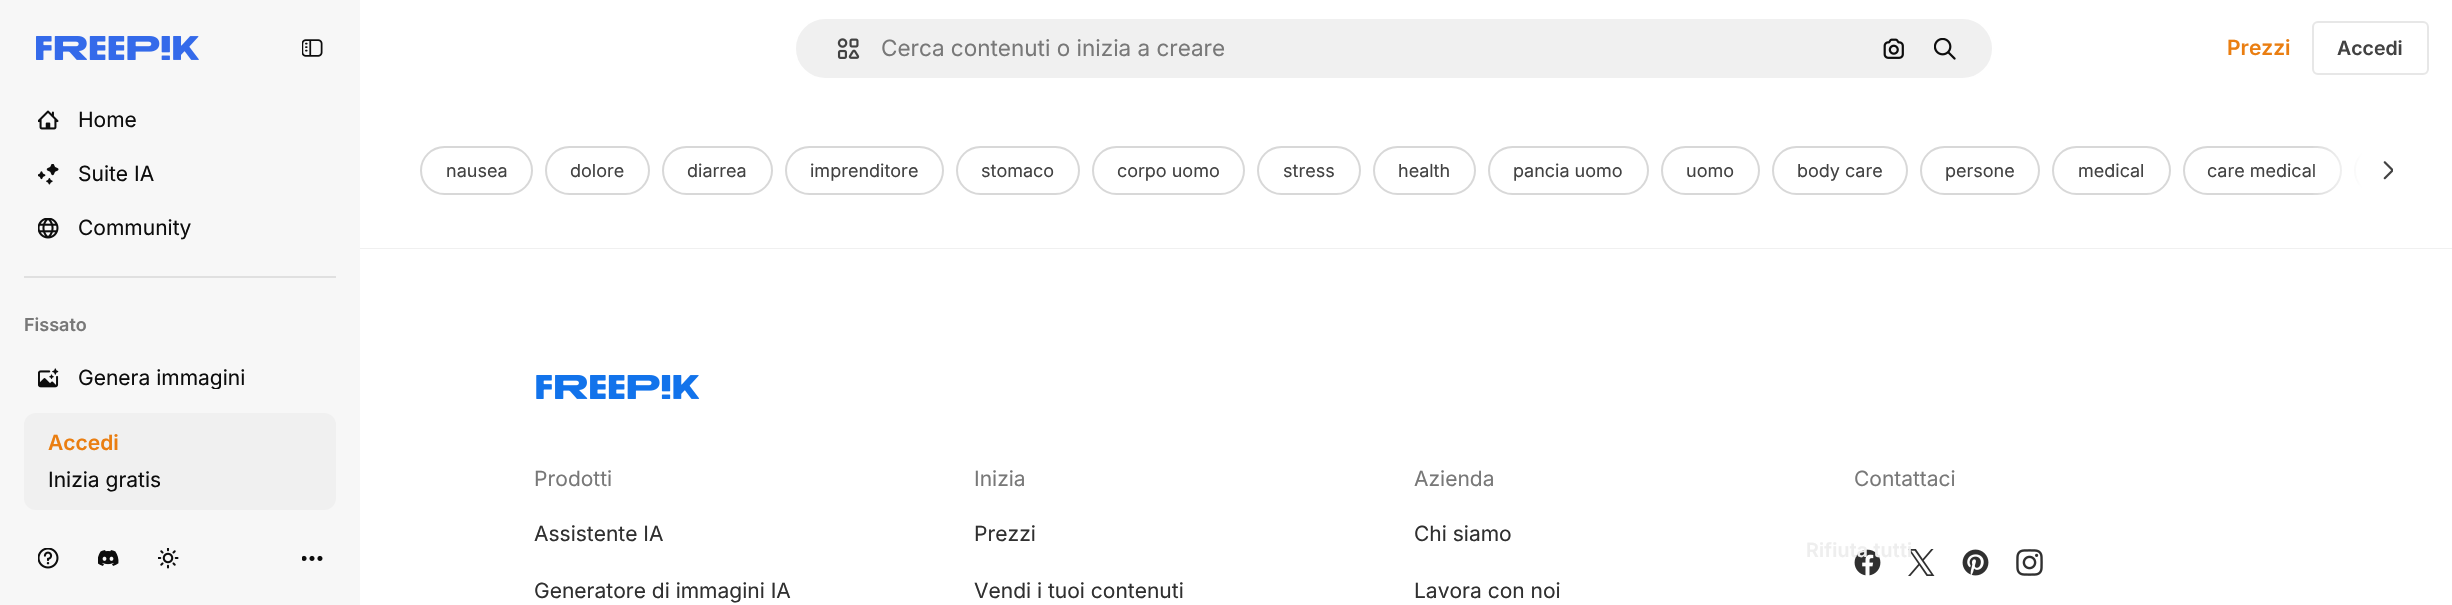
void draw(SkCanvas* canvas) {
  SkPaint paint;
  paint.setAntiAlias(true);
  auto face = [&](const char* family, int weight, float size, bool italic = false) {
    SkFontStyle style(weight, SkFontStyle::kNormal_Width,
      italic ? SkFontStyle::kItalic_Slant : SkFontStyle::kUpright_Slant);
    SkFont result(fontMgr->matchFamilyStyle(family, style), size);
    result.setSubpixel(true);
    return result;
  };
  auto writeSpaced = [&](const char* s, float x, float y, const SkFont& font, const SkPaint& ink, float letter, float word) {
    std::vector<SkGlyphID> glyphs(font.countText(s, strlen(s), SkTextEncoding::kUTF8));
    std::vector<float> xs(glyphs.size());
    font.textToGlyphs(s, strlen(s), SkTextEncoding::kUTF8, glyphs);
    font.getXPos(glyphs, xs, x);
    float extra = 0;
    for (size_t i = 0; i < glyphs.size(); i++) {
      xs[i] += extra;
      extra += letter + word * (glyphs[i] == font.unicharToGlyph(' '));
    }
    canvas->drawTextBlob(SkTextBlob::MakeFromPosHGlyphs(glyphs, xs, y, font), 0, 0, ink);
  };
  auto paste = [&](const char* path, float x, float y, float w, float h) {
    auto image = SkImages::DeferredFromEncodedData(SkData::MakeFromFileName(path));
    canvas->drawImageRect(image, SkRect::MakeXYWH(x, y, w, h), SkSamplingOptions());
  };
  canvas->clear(0xffffffff);
  paint.setColor(0xfff7f7f7);
  canvas->drawRect(SkRect::MakeXYWH(0, 0, 360, 605), paint);
  paste("img/1.png", 36, 36, 163, 24);
  paste("img/2.png", 302, 39, 21, 18);
  paste("img/3.png", 38, 110, 21, 20);
  paste("img/4.png", 38, 164, 21, 21);
  paste("img/5.png", 38, 218, 21, 21);
  paint.setColor(0xffe0e0e0);
  canvas->drawRect(SkRect::MakeXYWH(24, 276, 312, 2), paint);
  paste("img/6.png", 38, 368, 21, 20);
  paint.setColor(0xfff0f0f0);
  canvas->drawRoundRect(SkRect::MakeXYWH(24, 413, 312, 97), 12, 12, paint);
  paste("img/7.png", 38, 548, 21, 21);
  paste("img/8.png", 98, 550, 21, 16);
  paste("img/9.png", 158, 548, 21, 21);
  paste("img/10.png", 302, 555, 21, 6);
  canvas->drawRoundRect(SkRect::MakeXYWH(795, 18, 1198, 61), 30.5f, 30.5f, paint);
  paint.setStroke(true);
  paint.setStrokeWidth(2);
  paint.setColor(0xffffffff);
  canvas->drawRoundRect(SkRect::MakeXYWH(795, 18, 1198, 61), 30.5f, 30.5f, paint);
  paste("img/11.png", 837, 38, 23, 21);
  paste("img/12.png", 1883, 38, 21, 21);
  paste("img/13.png", 1934, 38, 22, 22);
  paint.setColor(0xffe7e7e7);
  canvas->drawRoundRect(SkRect::MakeXYWH(2313, 22, 115, 52), 5, 5, paint);
  paint.setColor(0xffd8d8d8);
  canvas->drawRoundRect(SkRect::MakeXYWH(421, 147, 111, 47), 23.5f, 23.5f, paint);
  canvas->drawRoundRect(SkRect::MakeXYWH(546, 147, 103, 47), 23.5f, 23.5f, paint);
  canvas->drawRoundRect(SkRect::MakeXYWH(663, 147, 109, 47), 23.5f, 23.5f, paint);
  canvas->drawRoundRect(SkRect::MakeXYWH(786, 147, 157, 47), 23.5f, 23.5f, paint);
  canvas->drawRoundRect(SkRect::MakeXYWH(957, 147, 122, 47), 23.5f, 23.5f, paint);
  canvas->drawRoundRect(SkRect::MakeXYWH(1093, 147, 151, 47), 23.5f, 23.5f, paint);
  canvas->drawRoundRect(SkRect::MakeXYWH(1258, 147, 102, 47), 23.5f, 23.5f, paint);
  canvas->drawRoundRect(SkRect::MakeXYWH(1374, 147, 101, 47), 23.5f, 23.5f, paint);
  canvas->drawRoundRect(SkRect::MakeXYWH(1489, 147, 159, 47), 23.5f, 23.5f, paint);
  canvas->drawRoundRect(SkRect::MakeXYWH(1662, 147, 97, 47), 23.5f, 23.5f, paint);
  canvas->drawRoundRect(SkRect::MakeXYWH(1773, 147, 134, 47), 23.5f, 23.5f, paint);
  canvas->drawRoundRect(SkRect::MakeXYWH(1921, 147, 118, 47), 23.5f, 23.5f, paint);
  canvas->drawRoundRect(SkRect::MakeXYWH(2053, 147, 117, 47), 23.5f, 23.5f, paint);
  canvas->drawRoundRect(SkRect::MakeXYWH(2184, 147, 157, 47), 23.5f, 23.5f, paint);
  canvas->save();
  canvas->clipRect(SkRect::MakeXYWH(420, 146, 1973, 49));
  canvas->drawRoundRect(SkRect::MakeXYWH(2355, 147, 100, 47), 23.5f, 23.5f, paint);
  canvas->restore();
  paint.setStroke(false);
  paint.setColor(0xffffffff);
  canvas->drawRect(SkRect::MakeXYWH(2363, 146, 30, 49), paint);
  paste("img/14.png", 2383, 161, 10, 19);
  paint.setColor(0xfff0f0f0);
  canvas->drawRect(SkRect::MakeXYWH(360, 248, 2092, 1), paint);
  paste("img/15.png", 536, 375, 164, 24);
  paste("img/16.png", 1854, 549, 27, 27);
  paste("img/17.png", 1908, 549, 27, 27);
  paste("img/18.png", 1962, 549, 27, 27);
  paste("img/19.png", 2016, 549, 27, 27);
  auto f0 = face("Inter", 400, 21);
  paint.setColor(0xff0d0d0d);
  {
    const struct { const char* s; float x, y; } items[] = {
      {"Home", 78, 127},
      {"Suite IA", 78, 181},
      {"Community", 78, 235},
    };
    for (auto [s, x, y] : items) {
      canvas->drawString(s, x, y, f0, paint);
    }
  }
  auto f1 = face("Inter", 600, 18);
  paint.setColor(0xff787878);
  canvas->drawString("Fissato", 24, 331, f1, paint);
  canvas->save();
  canvas->clipRect(SkRect::MakeXYWH(78, 362, 216, 27));
  paint.setColor(0xff0d0d0d);
  canvas->drawString("Genera immagini", 78, 385, f0, paint);
  canvas->restore();
  auto f2 = face("Inter", 600, 21);
  paint.setColor(0xffea7e11);
  canvas->drawString("Accedi", 48, 450, f2, paint);
  paint.setColor(0xff0d0d0d);
  canvas->drawString("Inizia gratis", 48, 487, f0, paint);
  auto f3 = face("Inter", 400, 22.5f);
  paint.setColor(0xff787878);
  canvas->drawString("Cerca contenuti o inizia a creare", 881, 56, f3, paint);
  paint.setColor(0xffea7e11);
  canvas->drawString("Prezzi", 2227, 55, f2, paint);
  auto f4 = face("Inter", 600, 19.5f);
  paint.setColor(0xff424242);
  canvas->drawString("Accedi", 2337, 55, f4, paint);
  auto f5 = face("Inter", 400, 18);
  {
    const struct { const char* s; float x, y; } items[] = {
      {"nausea", 446, 177},
      {"dolore", 570, 177},
      {"diarrea", 687, 177},
      {"imprenditore", 810, 177},
      {"stomaco", 981, 177},
      {"corpo uomo", 1117, 177},
      {"stress", 1283, 177},
      {"health", 1398, 177},
      {"pancia uomo", 1513, 177},
      {"uomo", 1686, 177},
      {"body care", 1797, 177},
      {"persone", 1945, 177},
      {"medical", 2078, 177},
      {"care medical", 2207, 177},
    };
    for (auto [s, x, y] : items) {
      canvas->drawString(s, x, y, f5, paint);
    }
  }
  {
    const SkColor colors[] = {0xffffffff, 0x00ffffff};
    const float stops[] = {0, 1};
    const SkPoint ends[] = {{2363, 170}, {2310, 170}};
    paint.setShader(SkGradientShader::MakeLinear(ends, colors, stops, 2, SkTileMode::kClamp));
    paint.setAlpha(255);
  }
  canvas->drawRect(SkRect::MakeXYWH(2313, 146, 50, 49), paint);
  paint.setShader(nullptr);
  paint.setColor(0xff787878);
  canvas->drawString("Prodotti", 534, 486, f0, paint);
  paint.setColor(0xff303030);
  canvas->drawString("Assistente IA", 534, 541, f0, paint);
  canvas->drawString("Generatore di immagini IA", 534, 598, f0, paint);
  paint.setColor(0xff787878);
  canvas->drawString("Inizia", 974, 486, f0, paint);
  paint.setColor(0xff303030);
  canvas->drawString("Prezzi", 974, 541, f0, paint);
  canvas->drawString("Vendi i tuoi contenuti", 974, 598, f0, paint);
  paint.setColor(0xff787878);
  canvas->drawString("Azienda", 1414, 486, f0, paint);
  paint.setColor(0xff303030);
  canvas->drawString("Chi siamo", 1414, 541, f0, paint);
  canvas->drawString("Lavora con noi", 1414, 598, f0, paint);
  paint.setColor(0xff787878);
  canvas->drawString("Contattaci", 1854, 486, f0, paint);
  paint.setColor(0xffeeeeee);
  writeSpaced("Rifiuta tutti", 1806, 557, f4, paint, 0.25f, 0);
}
